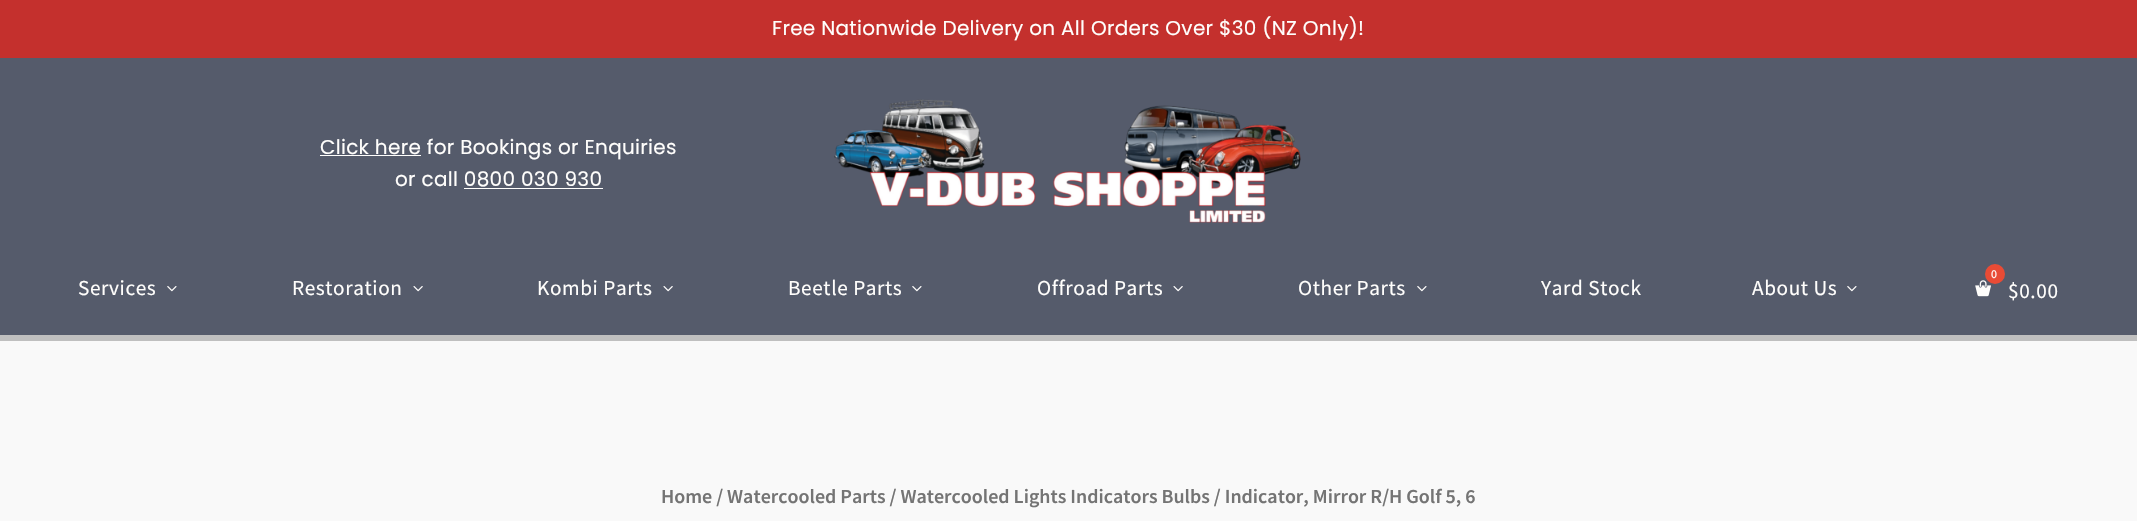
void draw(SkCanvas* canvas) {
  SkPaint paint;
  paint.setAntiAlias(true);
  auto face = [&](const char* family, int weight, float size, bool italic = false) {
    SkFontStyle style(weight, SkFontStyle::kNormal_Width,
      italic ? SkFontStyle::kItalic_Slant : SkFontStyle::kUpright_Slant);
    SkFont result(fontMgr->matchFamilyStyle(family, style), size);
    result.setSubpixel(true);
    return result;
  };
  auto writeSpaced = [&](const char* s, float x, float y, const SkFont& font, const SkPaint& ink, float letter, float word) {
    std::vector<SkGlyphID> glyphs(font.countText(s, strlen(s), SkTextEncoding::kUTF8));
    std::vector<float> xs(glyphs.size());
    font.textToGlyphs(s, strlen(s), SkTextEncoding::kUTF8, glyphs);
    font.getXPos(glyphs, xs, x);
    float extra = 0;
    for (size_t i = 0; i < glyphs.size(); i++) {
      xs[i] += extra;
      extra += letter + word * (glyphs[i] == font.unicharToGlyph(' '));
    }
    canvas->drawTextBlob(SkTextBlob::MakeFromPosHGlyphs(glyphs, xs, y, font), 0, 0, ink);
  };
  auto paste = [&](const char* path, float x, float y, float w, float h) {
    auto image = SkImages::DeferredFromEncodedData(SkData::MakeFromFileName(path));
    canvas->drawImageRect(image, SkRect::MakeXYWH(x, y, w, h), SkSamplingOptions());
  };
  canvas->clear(0xfff9f9f9);
  {
    const struct { float x, y, w, h; SkColor color; } items[] = {
      {0, 0, 2137, 58, 0xffc4302d},
      {0, 58, 2137, 277, 0xff555b6b},
      {320, 155, 101, 1, 0xfffffefc},
      {464, 188, 139, 1, 0xfffffefc},
    };
    for (auto [x, y, w, h, color] : items) {
      paint.setColor(color);
      canvas->drawRect(SkRect::MakeXYWH(x, y, w, h), paint);
    }
  }
  paste("img/1.png", 834, 99, 467, 124);
  paint.setColor(0xffbfbfbf);
  canvas->drawRect(SkRect::MakeXYWH(0, 335, 2137, 6), paint);
  paste("img/2.png", 167, 286, 10, 6);
  paste("img/3.png", 413, 286, 10, 6);
  paste("img/3.png", 663, 286, 10, 6);
  paste("img/2.png", 912, 286, 10, 6);
  paste("img/3.png", 1173, 286, 10, 6);
  paste("img/2.png", 1417, 286, 10, 6);
  paste("img/2.png", 1847, 286, 10, 6);
  paste("img/4.png", 1975, 280, 16, 17);
  paint.setColor(0xffe94b35);
  canvas->drawCircle(1995, 274, 10, paint);
  auto f0 = face("Poppins", 400, 20);
  paint.setColor(0xfffffefc);
  {
    const struct { const char* s; float x, y; } items[] = {
      {"Free Nationwide Delivery on All Orders Over $30 (NZ Only)!", 772, 35},
      {"Click here for Bookings or Enquiries", 320, 154},
      {"or call 0800 030 930", 395, 186},
    };
    for (auto [s, x, y] : items) {
      writeSpaced(s, x, y, f0, paint, 0.3f, 0);
    }
  }
  auto f1 = face("Source Sans Pro", 400, 21.25f);
  {
    const struct { const char* s; float x, y; } items[] = {
      {"Services", 78, 295},
      {"Restoration", 292, 295},
      {"Kombi Parts", 537, 295},
      {"Beetle Parts", 788, 295},
      {"Offroad Parts", 1037, 295},
      {"Other Parts", 1298, 295},
      {"Yard Stock", 1541, 295},
      {"About Us", 1752, 295},
    };
    for (auto [s, x, y] : items) {
      writeSpaced(s, x, y, f1, paint, 0.6f, 0);
    }
  }
  auto f2 = face("Source Sans Pro", 400, 12);
  writeSpaced("0", 1991, 278, f2, paint, 0.6f, 0);
  writeSpaced("$0.00", 2008, 298, f1, paint, 0.6f, 0);
  auto f3 = face("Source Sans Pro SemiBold", 600, 20);
  paint.setColor(0xff747474);
  canvas->drawString("Home / Watercooled Parts / Watercooled Lights Indicators Bulbs / Indicator, Mirror R/H Golf 5, 6", 661, 503, f3, paint);
}
